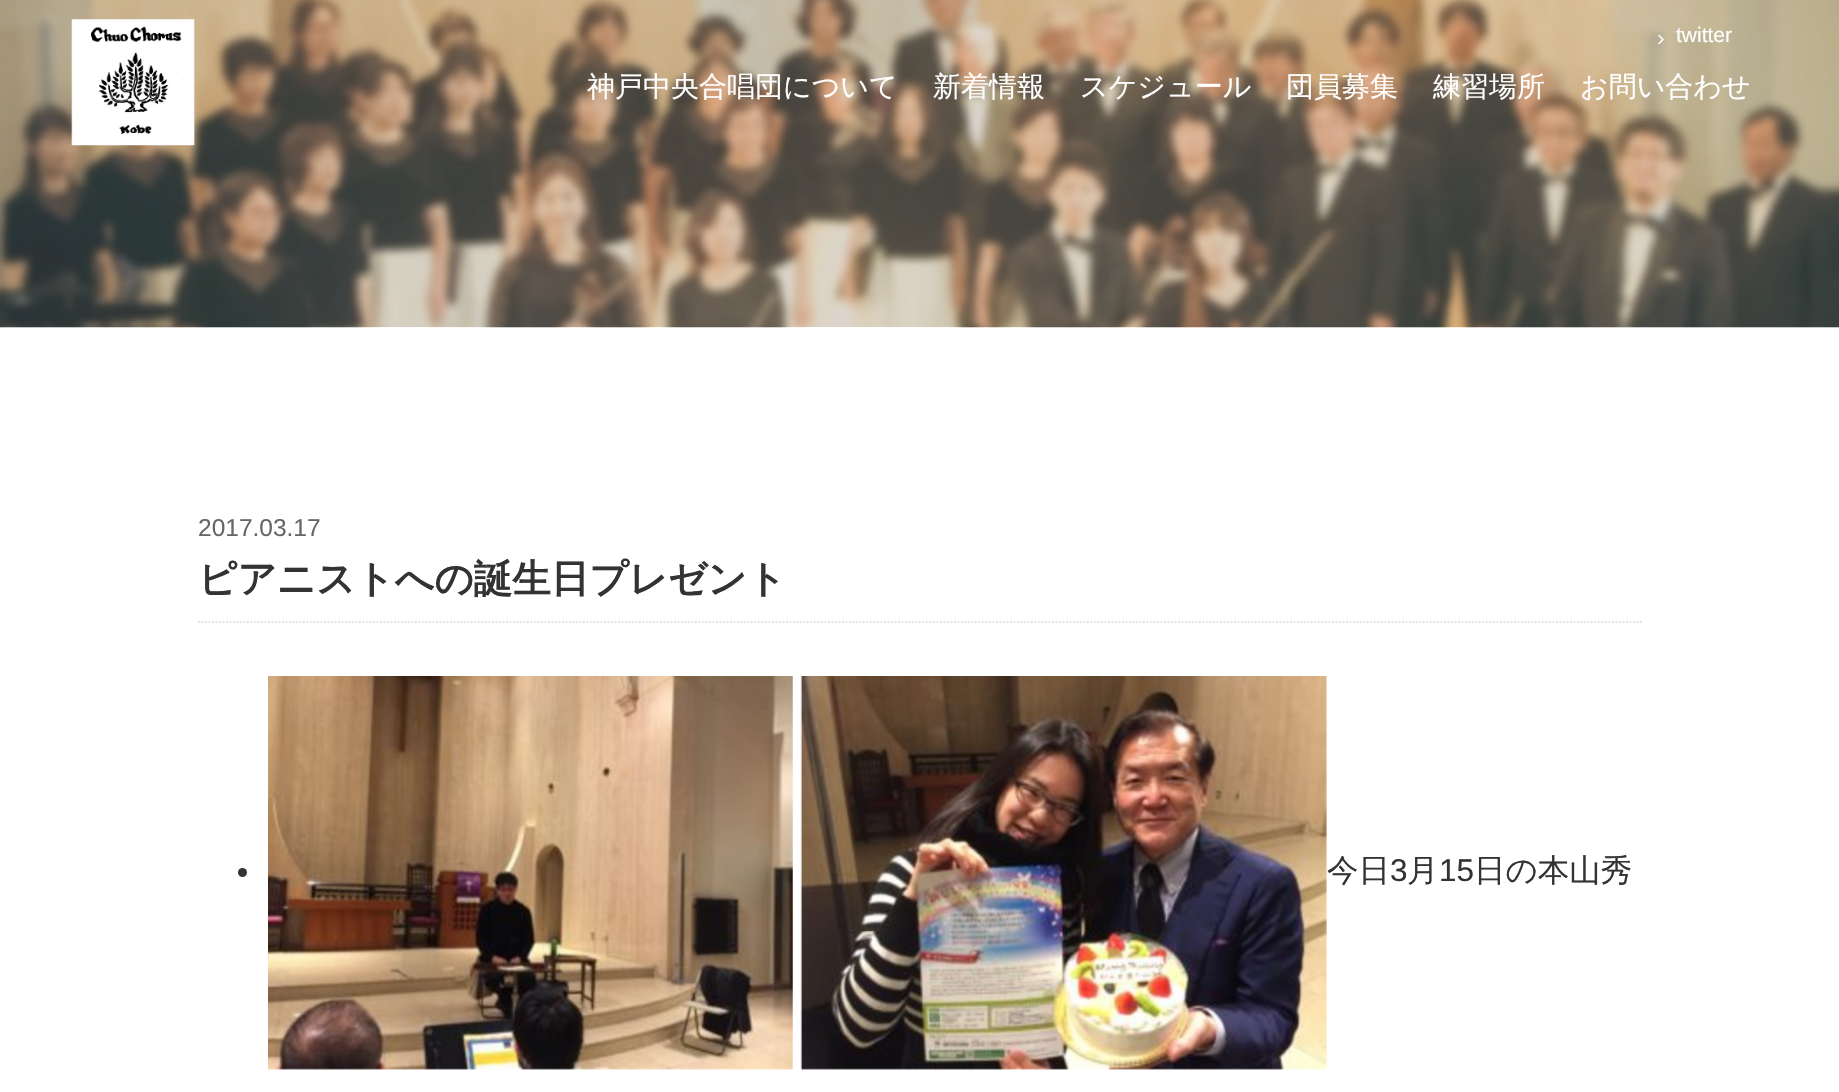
void draw(SkCanvas* canvas) {
  SkPaint paint;
  paint.setAntiAlias(true);
  auto face = [&](const char* family, int weight, float size, bool italic = false) {
    SkFontStyle style(weight, SkFontStyle::kNormal_Width,
      italic ? SkFontStyle::kItalic_Slant : SkFontStyle::kUpright_Slant);
    SkFont result(fontMgr->matchFamilyStyle(family, style), size);
    result.setSubpixel(true);
    return result;
  };
  auto paste = [&](const char* path, float x, float y, float w, float h) {
    auto image = SkImages::DeferredFromEncodedData(SkData::MakeFromFileName(path));
    canvas->drawImageRect(image, SkRect::MakeXYWH(x, y, w, h), SkSamplingOptions());
  };
  auto shape = [&](const char* data, bool evenOdd = false) {
    SkPath result = *SkParsePath::FromSVGString(data);
    if (evenOdd) result.setFillType(SkPathFillType::kEvenOdd);
    return result;
  };
  canvas->clear(0xffffffff);
  paste("img/1.png", 0, 0, 1839, 328);
  paste("img/2.png", 1658, 34, 6, 11);
  paste("img/3.png", 71, 19, 124, 127);
  paint.setStroke(true);
  paint.setStrokeWidth(1.8f);
  paint.setColor(0xffe0e0e0);
  paint.setPathEffect(SkDashPathEffect::Make({{1.75f, 1.75f}}, 0));
  canvas->drawPath(shape("M198 622H1641.5"), paint);
  paint.setPathEffect(nullptr);
  paint.setStroke(false);
  paint.setColor(0xff333333);
  canvas->drawCircle(242.5f, 872.5f, 4.5f, paint);
  paste("img/4.png", 268, 676, 525, 394);
  paste("img/5.png", 800, 676, 527, 394);
  auto f0 = face("Liberation Sans", 400, 21);
  paint.setColor(0xffffffff);
  canvas->drawString("twitter", 1676, 42, f0, paint);
  auto f1 = face("WenQuanYi Zen Hei", 500, 28);
  {
    const struct { const char* s; float x, y; } items[] = {
      {"神戸中央合唱団について", 587, 96},
      {"新着情報", 933, 96},
      {"スケジュール", 1080, 96},
      {"団員募集", 1286, 96},
      {"練習場所", 1433, 96},
      {"お問い合わせ", 1580, 96},
    };
    for (auto [s, x, y] : items) {
      canvas->drawString(s, x, y, f1, paint);
    }
  }
  auto f2 = face("Liberation Sans", 400, 24.5f);
  paint.setColor(0xff666666);
  canvas->drawString("2017.03.17", 198, 536, f2, paint);
  auto f3 = face("WenQuanYi Zen Hei", 700, 38.5f);
  paint.setColor(0xff333333);
  canvas->drawString("ピアニストへの誕生日プレゼント", 198, 592, f3, paint);
  auto f4 = face("WenQuanYi Zen Hei", 500, 31.5f);
  canvas->drawString("今日", 1327, 881, f4, paint);
  auto f5 = face("Liberation Sans", 400, 31.5f);
  canvas->drawString("3", 1390, 881, f5, paint);
  canvas->drawString("月", 1407, 881, f4, paint);
  canvas->drawString("15", 1439, 881, f5, paint);
  canvas->drawString("日の本山秀", 1474, 881, f4, paint);
}
